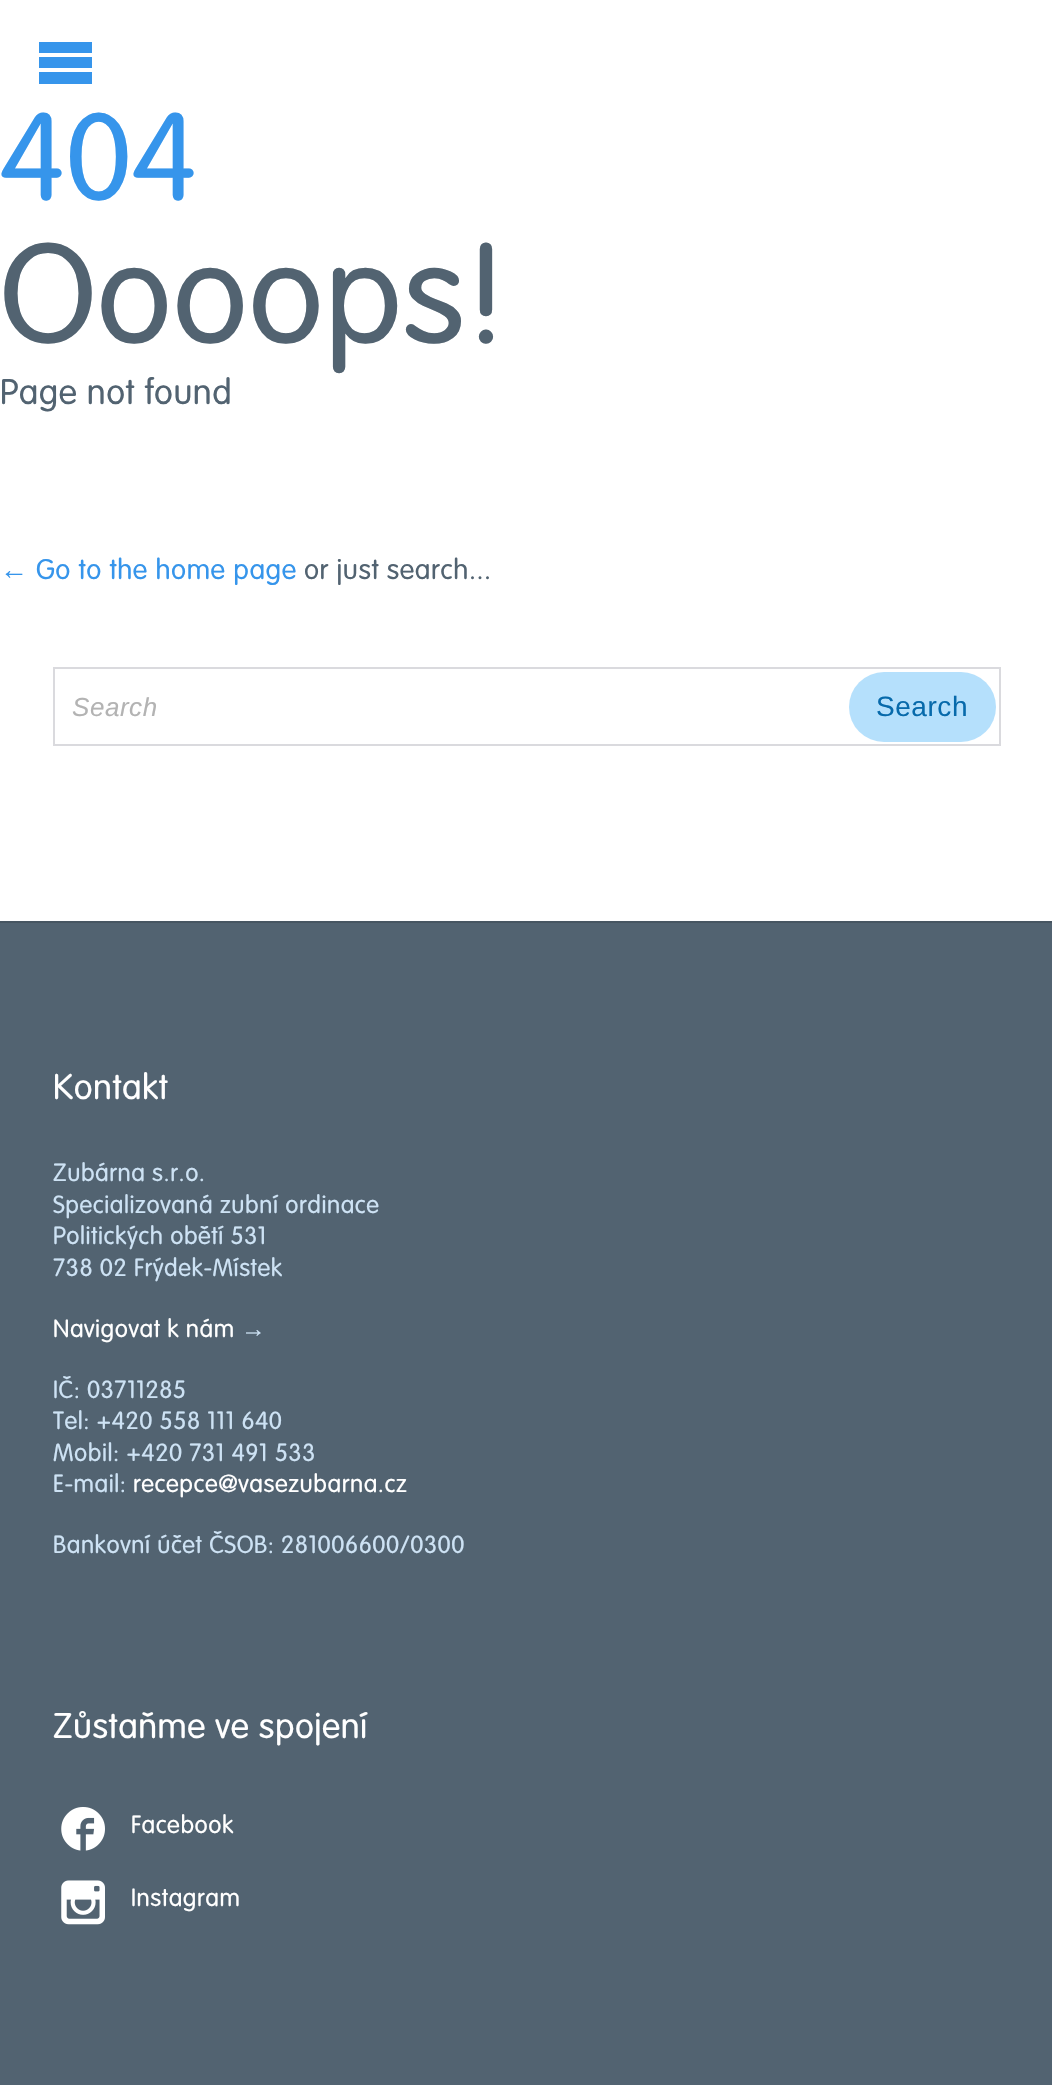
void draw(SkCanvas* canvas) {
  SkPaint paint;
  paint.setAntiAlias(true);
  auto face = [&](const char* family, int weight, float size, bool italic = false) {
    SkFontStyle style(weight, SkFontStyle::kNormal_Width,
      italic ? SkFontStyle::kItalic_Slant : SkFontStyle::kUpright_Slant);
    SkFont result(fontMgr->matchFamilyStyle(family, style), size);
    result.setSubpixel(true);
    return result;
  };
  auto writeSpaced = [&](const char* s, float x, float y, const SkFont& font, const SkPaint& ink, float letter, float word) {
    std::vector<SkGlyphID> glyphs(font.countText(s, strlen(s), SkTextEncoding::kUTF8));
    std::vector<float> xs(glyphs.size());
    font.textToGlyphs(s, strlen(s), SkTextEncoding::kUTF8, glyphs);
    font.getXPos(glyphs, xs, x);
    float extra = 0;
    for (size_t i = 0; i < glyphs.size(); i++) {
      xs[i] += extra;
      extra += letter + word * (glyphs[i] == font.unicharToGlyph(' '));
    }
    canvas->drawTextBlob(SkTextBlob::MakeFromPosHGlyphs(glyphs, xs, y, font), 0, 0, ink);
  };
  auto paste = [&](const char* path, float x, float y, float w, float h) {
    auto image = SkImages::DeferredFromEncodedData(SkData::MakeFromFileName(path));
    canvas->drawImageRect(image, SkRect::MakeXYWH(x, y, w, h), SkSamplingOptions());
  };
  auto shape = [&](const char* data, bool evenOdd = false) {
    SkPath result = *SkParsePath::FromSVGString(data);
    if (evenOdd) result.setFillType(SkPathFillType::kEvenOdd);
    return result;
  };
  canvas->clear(0xffffffff);
  paint.setColor(0xff3695eb);
  canvas->drawPath(shape("M39 42H92V53H39ZM39 57H92V68H39ZM39 72H92V84H39Z"), paint);
  paint.setStroke(true);
  paint.setStrokeWidth(2);
  paint.setColor(0xffdadade);
  canvas->drawRect(SkRect::MakeXYWH(54, 668, 946, 77), paint);
  paint.setStroke(false);
  paint.setColor(0xffb5e0fc);
  canvas->drawRoundRect(SkRect::MakeXYWH(849, 672, 147, 70), 35, 35, paint);
  paint.setColor(0xff526371);
  canvas->drawRect(SkRect::MakeXYWH(0, 923, 1052, 1162), paint);
  paint.setColor(0xff475662);
  canvas->drawRect(SkRect::MakeXYWH(0, 921, 1052, 2), paint);
  paste("img/1.png", 61, 1807, 44, 44);
  paste("img/2.png", 61, 1880, 44, 45);
  auto f0 = face("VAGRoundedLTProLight", 300, 122);
  paint.setColor(0xff3695eb);
  writeSpaced("404", 0, 200, f0, paint, 0.55f, 0);
  auto f1 = face("VAGRoundedLTProLight", 300, 140);
  paint.setColor(0xff526371);
  writeSpaced("Oooops!", 0, 343, f1, paint, 0.55f, 0);
  auto f2 = face("VAGRoundedLTProLight", 300, 35);
  writeSpaced("Page not found", 0, 404, f2, paint, 0.55f, 0);
  auto f3 = face("Liberation Serif", 400, 28);
  paint.setColor(0xff3695eb);
  writeSpaced("←", 0, 579, f3, paint, 0.55f, 0);
  auto f4 = face("VAGRoundedLTProLight", 300, 28);
  writeSpaced("Go to the home page", 36, 579, f4, paint, 0.55f, 0);
  paint.setColor(0xff526371);
  writeSpaced("or just search...", 304, 579, f4, paint, 0.55f, 0);
  auto f5 = face("Liberation Sans", 400, 26, true);
  paint.setColor(0xffb3b3b3);
  writeSpaced("Search", 72, 716, f5, paint, 0.55f, 0);
  auto f6 = face("Liberation Sans", 400, 28);
  paint.setColor(0xff076aab);
  writeSpaced("Search", 876, 716, f6, paint, 0.55f, 0);
  paint.setColor(0xffffffff);
  writeSpaced("Kontakt", 53, 1099, f2, paint, 0.55f, 0);
  auto f7 = face("VAGRoundedLTProLight", 300, 24.5f);
  paint.setColor(0xffcde2f4);
  {
    const struct { const char* s; float x, y; } items[] = {
      {"Zubárna s.r.o.", 53, 1181},
      {"Specializovaná zubní ordinace", 53, 1213},
      {"Politických obětí 531", 53, 1244},
      {"738 02 Frýdek-Místek", 53, 1276},
    };
    for (auto [s, x, y] : items) {
      writeSpaced(s, x, y, f7, paint, 0.55f, 0);
    }
  }
  paint.setColor(0xffffffff);
  writeSpaced("Navigovat k nám", 53, 1337, f7, paint, 0.55f, 0);
  auto f8 = face("Liberation Serif", 400, 24.5f);
  paint.setColor(0xffcde2f4);
  writeSpaced("→", 241, 1337, f8, paint, 0.55f, 0);
  {
    const struct { const char* s; float x, y; } items[] = {
      {"IČ: 03711285", 53, 1398},
      {"Tel: +420 558 111 640", 53, 1429},
      {"Mobil: +420 731 491 533", 53, 1461},
      {"E-mail:", 53, 1492},
    };
    for (auto [s, x, y] : items) {
      writeSpaced(s, x, y, f7, paint, 0.55f, 0);
    }
  }
  paint.setColor(0xffffffff);
  writeSpaced("recepce@vasezubarna.cz", 133, 1492, f7, paint, 0.55f, 0);
  paint.setColor(0xffcde2f4);
  writeSpaced("Bankovní účet ČSOB: 281006600/0300", 53, 1553, f7, paint, 0.55f, 0);
  paint.setColor(0xffffffff);
  writeSpaced("Zůstaňme ve spojení", 53, 1738, f2, paint, 0.55f, 0);
  writeSpaced("Facebook", 131, 1833, f7, paint, 0.55f, 0);
  writeSpaced("Instagram", 131, 1906, f7, paint, 0.55f, 0);
}
